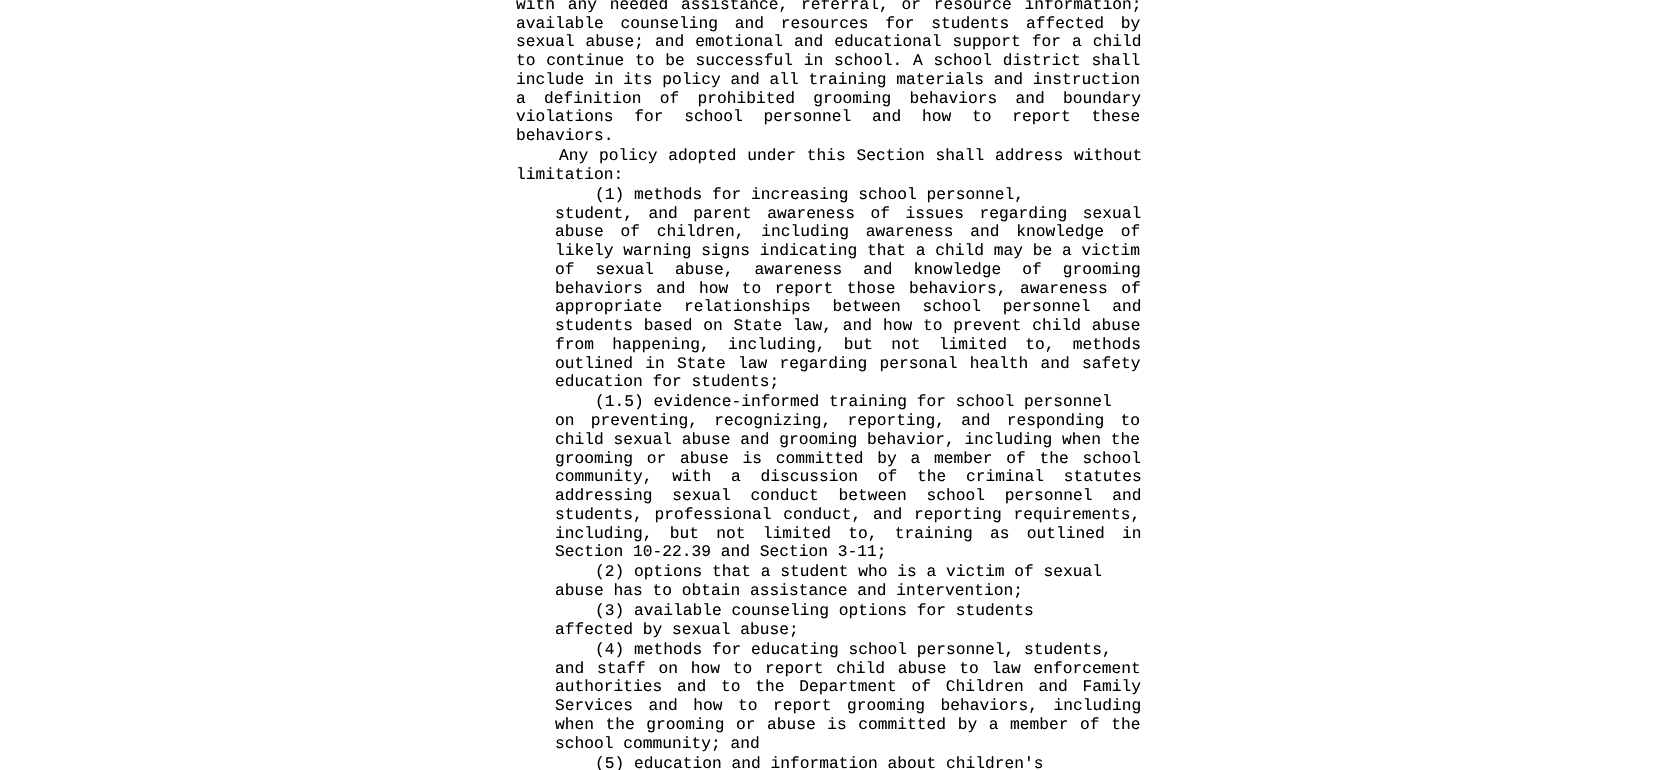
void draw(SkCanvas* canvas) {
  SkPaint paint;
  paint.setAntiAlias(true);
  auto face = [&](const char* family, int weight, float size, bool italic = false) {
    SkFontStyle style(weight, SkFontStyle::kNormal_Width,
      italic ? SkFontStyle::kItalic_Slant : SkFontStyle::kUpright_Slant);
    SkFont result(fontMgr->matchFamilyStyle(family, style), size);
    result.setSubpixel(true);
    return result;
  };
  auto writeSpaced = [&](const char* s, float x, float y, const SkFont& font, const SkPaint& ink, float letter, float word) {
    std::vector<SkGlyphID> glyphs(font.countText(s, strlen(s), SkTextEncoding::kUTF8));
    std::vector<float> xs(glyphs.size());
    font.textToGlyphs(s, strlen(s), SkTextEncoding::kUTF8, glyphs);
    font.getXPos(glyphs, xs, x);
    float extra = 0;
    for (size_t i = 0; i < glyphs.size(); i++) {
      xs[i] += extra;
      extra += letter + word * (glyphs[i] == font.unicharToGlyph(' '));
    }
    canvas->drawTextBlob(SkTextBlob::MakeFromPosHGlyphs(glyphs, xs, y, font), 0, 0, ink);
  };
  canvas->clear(0xffffffff);
  auto f0 = face("Liberation Mono", 400, 16.25f);
  paint.setColor(0xff000000);
  writeSpaced("with any needed assistance, referral, or resource information;", 516, 9, f0, paint, 0, 3);
  writeSpaced("available counseling and resources for students affected by", 516, 28, f0, paint, 0, 7);
  writeSpaced("sexual abuse; and emotional and educational support for a child", 516, 46, f0, paint, 0, 1.25f);
  writeSpaced("to continue to be successful in school. A school district shall", 516, 65, f0, paint, 0, 1);
  canvas->drawString("include in its policy and all training materials and instruction", 516, 84, f0, paint);
  writeSpaced("a definition of prohibited grooming behaviors and boundary", 516, 103, f0, paint, 0, 8.5f);
  writeSpaced("violations for school personnel and how to report these", 516, 121, f0, paint, 0, 11);
  canvas->drawString("behaviors.", 516, 140, f0, paint);
  writeSpaced("Any policy adopted under this Section shall address without", 559, 160, f0, paint, 0, 1);
  canvas->drawString("limitation:", 516, 179, f0, paint);
  canvas->drawString("(1) methods for increasing school personnel,", 595, 199, f0, paint);
  writeSpaced("student, and parent awareness of issues regarding sexual", 555, 218, f0, paint, 0, 5.75f);
  writeSpaced("abuse of children, including awareness and knowledge of", 555, 236, f0, paint, 0, 7);
  canvas->drawString("likely warning signs indicating that a child may be a victim", 555, 255, f0, paint);
  writeSpaced("of sexual abuse, awareness and knowledge of grooming", 555, 274, f0, paint, 0, 11.25f);
  writeSpaced("behaviors and how to report those behaviors, awareness of", 555, 293, f0, paint, 0, 3.75f);
  writeSpaced("appropriate relationships between school personnel and", 555, 311, f0, paint, 0, 12);
  writeSpaced("students based on State law, and", 555, 330, f0, paint, 0, 1);
  writeSpaced("how to prevent child abuse", 883, 330, f0, paint, 0, 1);
  writeSpaced("from happening, including, but not limited to, methods", 555, 349, f0, paint, 0, 8.5f);
  writeSpaced("outlined in State law regarding personal health and safety", 555, 368, f0, paint, 0, 2.5f);
  canvas->drawString("education for students;", 555, 386, f0, paint);
  canvas->drawString("(1.5) evidence-informed training for school personnel", 595, 406, f0, paint);
  writeSpaced("on preventing, recognizing, reporting, and responding to", 555, 425, f0, paint, 0, 6.5f);
  canvas->drawString("child sexual abuse and grooming behavior, including when the", 555, 444, f0, paint);
  writeSpaced("grooming or abuse is committed by a member of the school", 555, 463, f0, paint, 0, 4);
  writeSpaced("community, with a discussion of the criminal statutes", 555, 481, f0, paint, 0, 10);
  writeSpaced("addressing sexual conduct between school personnel and", 555, 500, f0, paint, 0, 10);
  writeSpaced("students, professional conduct, and reporting requirements,", 555, 519, f0, paint, 0, 2);
  writeSpaced("including, but not limited to, training as outlined in", 555, 538, f0, paint, 0, 7.5f);
  {
    const struct { const char* s; float x, y; } items[] = {
      {"Section 10-22.39 and Section 3-11;", 555, 556},
      {"(2) options that a student who is a victim of sexual", 595, 576},
      {"abuse has to obtain assistance and intervention;", 555, 595},
      {"(3) available counseling options for students", 595, 615},
      {"affected by sexual abuse;", 555, 634},
      {"(4) methods for educating school personnel, students,", 595, 654},
    };
    for (auto [s, x, y] : items) {
      canvas->drawString(s, x, y, f0, paint);
    }
  }
  writeSpaced("and staff on how to report child abuse to law enforcement", 555, 673, f0, paint, 0, 3);
  writeSpaced("authorities and to the Department of Children and Family", 555, 691, f0, paint, 0, 5);
  writeSpaced("Services and how to report grooming behaviors, including", 555, 710, f0, paint, 0, 5.75f);
  writeSpaced("when the grooming or abuse is committed by a member of the", 555, 729, f0, paint, 0, 1.8f);
  canvas->drawString("school community; and", 555, 748, f0, paint);
  canvas->drawString("(5) education and information about children's", 595, 768, f0, paint);
}
